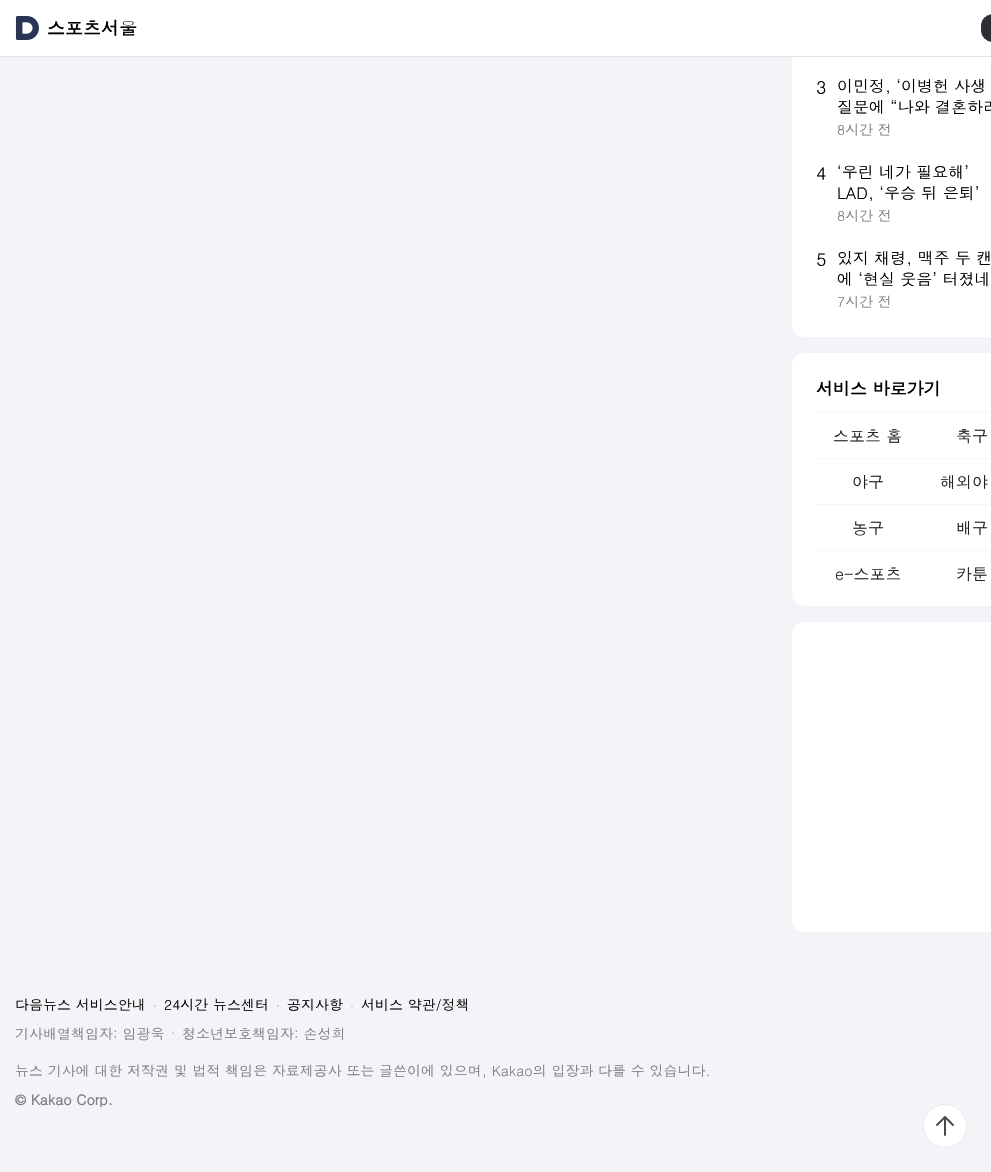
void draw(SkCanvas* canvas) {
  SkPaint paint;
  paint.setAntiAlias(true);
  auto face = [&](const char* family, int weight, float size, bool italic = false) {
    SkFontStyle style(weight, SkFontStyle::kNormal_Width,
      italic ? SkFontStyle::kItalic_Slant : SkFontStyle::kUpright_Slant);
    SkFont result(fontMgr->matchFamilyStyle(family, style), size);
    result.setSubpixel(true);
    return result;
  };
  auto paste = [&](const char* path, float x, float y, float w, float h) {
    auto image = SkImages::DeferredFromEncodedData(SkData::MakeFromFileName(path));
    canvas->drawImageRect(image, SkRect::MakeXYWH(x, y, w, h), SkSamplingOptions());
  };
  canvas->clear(0xfff2f4f7);
  paint.setColor(0xffffffff);
  canvas->drawRect(SkRect::MakeXYWH(0, 0, 792, 56), paint);
  canvas->drawRoundRect(SkRect::MakeXYWH(792, -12, 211, 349), 12, 12, paint);
  paint.setColor(0xffe2e2e2);
  canvas->drawRect(SkRect::MakeXYWH(0, 56, 991, 1), paint);
  paste("img/1.png", 15, 16, 24, 24);
  paint.setColor(0xff2c2e33);
  canvas->drawRoundRect(SkRect::MakeXYWH(981, 14, 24, 28), 14, 14, paint);
  paint.setColor(0xffffffff);
  canvas->drawRoundRect(SkRect::MakeXYWH(792, 353, 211, 253), 12, 12, paint);
  {
    const struct { float x, y, w, h; SkColor color; } items[] = {
      {816, 412, 175, 1, 0xfff7f7f7},
      {816, 458, 175, 1, 0xfff7f7f7},
      {816, 504, 175, 1, 0xfff7f7f7},
      {816, 550, 175, 1, 0xfff7f7f7},
    };
    for (auto [x, y, w, h, color] : items) {
      paint.setColor(color);
      canvas->drawRect(SkRect::MakeXYWH(x, y, w, h), paint);
    }
  }
  paint.setColor(0xffffffff);
  canvas->drawRoundRect(SkRect::MakeXYWH(792, 622, 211, 310), 12, 12, paint);
  paint.setColor(0xffcbcdcf);
  canvas->drawCircle(155, 1006, 1, paint);
  canvas->drawCircle(278, 1006, 1, paint);
  canvas->drawCircle(352, 1006, 1, paint);
  canvas->drawCircle(173, 1033, 1, paint);
  paint.setColor(0xffffffff);
  canvas->drawCircle(945, 1126, 22, paint);
  paint.setStroke(true);
  paint.setStrokeWidth(1);
  paint.setColor(0x14000000);
  canvas->drawCircle(945, 1126, 21.5f, paint);
  paste("img/2.png", 936, 1116, 18, 20);
  auto f0 = face("Dotum", 700, 18);
  paint.setStroke(false);
  paint.setColor(0xff000000);
  canvas->drawString("스포츠서울", 47, 35, f0, paint);
  auto f1 = face("Dotum", 400, 18);
  canvas->drawString("3", 816, 94, f1, paint);
  auto f2 = face("Dotum", 400, 16);
  canvas->drawString("이민정, ‘이병헌 사생", 837, 92, f2, paint);
  canvas->drawString("질문에 “나와 결혼하려", 837, 113, f2, paint);
  auto f3 = face("Dotum", 400, 14);
  paint.setColor(0xff7e7f80);
  canvas->drawString("8시간 전", 837, 135, f3, paint);
  paint.setColor(0xff000000);
  canvas->drawString("4", 816, 180, f1, paint);
  canvas->drawString("‘우린 네가 필요해’", 837, 178, f2, paint);
  canvas->drawString("LAD, ‘우승 뒤 은퇴’", 837, 199, f2, paint);
  paint.setColor(0xff7e7f80);
  canvas->drawString("8시간 전", 837, 221, f3, paint);
  paint.setColor(0xff000000);
  canvas->drawString("5", 816, 266, f1, paint);
  canvas->drawString("있지 채령, 맥주 두 캔", 837, 264, f2, paint);
  canvas->drawString("에 ‘현실 웃음’ 터졌네", 837, 285, f2, paint);
  paint.setColor(0xff7e7f80);
  canvas->drawString("7시간 전", 837, 307, f3, paint);
  auto f4 = face("Dotum", 700, 17);
  paint.setColor(0xff000000);
  canvas->drawString("서비스 바로가기", 816, 395, f4, paint);
  paint.setColor(0xff202020);
  {
    const struct { const char* s; float x, y; } items[] = {
      {"스포츠 홈", 833, 442},
      {"축구", 956, 442},
      {"야구", 852, 488},
      {"해외야", 940, 488},
      {"농구", 852, 534},
      {"배구", 956, 534},
      {"e-스포츠", 835, 580},
      {"카툰", 956, 580},
    };
    for (auto [s, x, y] : items) {
      canvas->drawString(s, x, y, f2, paint);
    }
  }
  paint.setColor(0xff000000);
  {
    const struct { const char* s; float x, y; } items[] = {
      {"다음뉴스 서비스안내", 15, 1010},
      {"24시간 뉴스센터", 164, 1010},
      {"공지사항", 287, 1010},
      {"서비스 약관/정책", 361, 1010},
    };
    for (auto [s, x, y] : items) {
      canvas->drawString(s, x, y, f3, paint);
    }
  }
  paint.setColor(0xff7e7f80);
  {
    const struct { const char* s; float x, y; } items[] = {
      {"기사배열책임자: 임광욱", 15, 1039},
      {"청소년보호책임자: 손성희", 182, 1039},
      {"뉴스 기사에 대한 저작권 및 법적 책임은 자료제공사 또는 글쓴이에 있으며, Kakao의 입장과 다를 수 있습니다.", 15, 1076},
    };
    for (auto [s, x, y] : items) {
      canvas->drawString(s, x, y, f3, paint);
    }
  }
  auto f5 = face("Dotum", 700, 14);
  canvas->drawString("© Kakao Corp.", 15, 1105, f5, paint);
}
